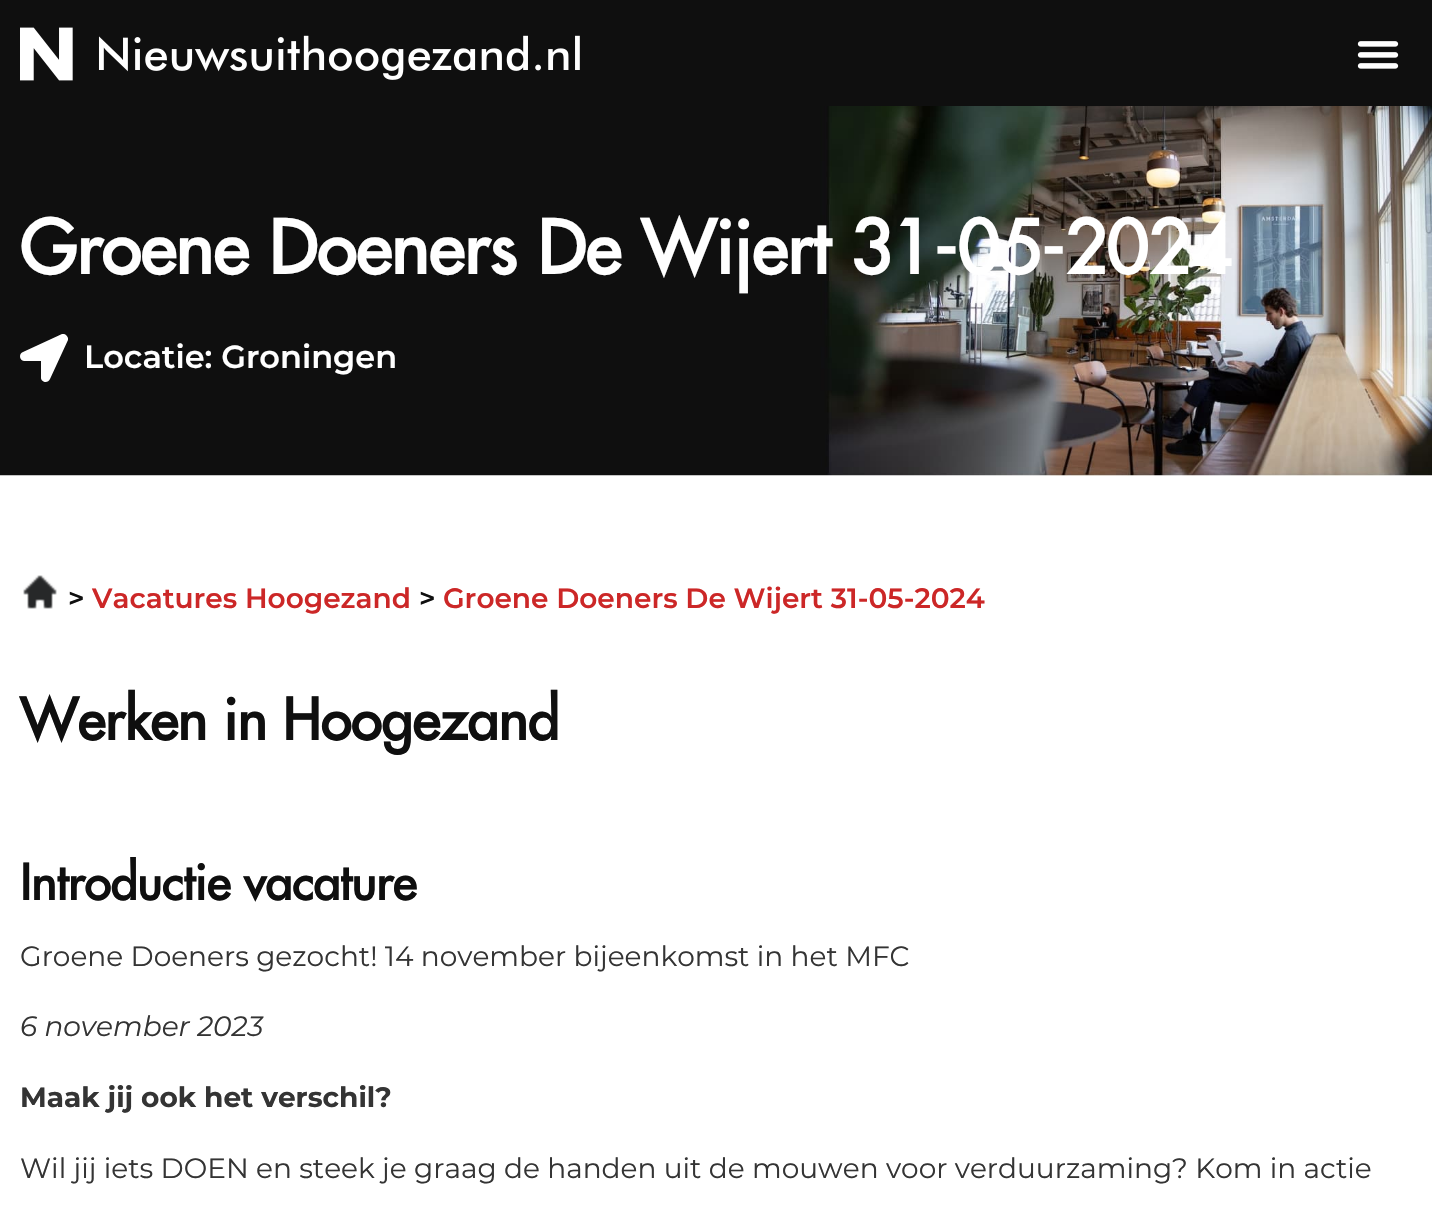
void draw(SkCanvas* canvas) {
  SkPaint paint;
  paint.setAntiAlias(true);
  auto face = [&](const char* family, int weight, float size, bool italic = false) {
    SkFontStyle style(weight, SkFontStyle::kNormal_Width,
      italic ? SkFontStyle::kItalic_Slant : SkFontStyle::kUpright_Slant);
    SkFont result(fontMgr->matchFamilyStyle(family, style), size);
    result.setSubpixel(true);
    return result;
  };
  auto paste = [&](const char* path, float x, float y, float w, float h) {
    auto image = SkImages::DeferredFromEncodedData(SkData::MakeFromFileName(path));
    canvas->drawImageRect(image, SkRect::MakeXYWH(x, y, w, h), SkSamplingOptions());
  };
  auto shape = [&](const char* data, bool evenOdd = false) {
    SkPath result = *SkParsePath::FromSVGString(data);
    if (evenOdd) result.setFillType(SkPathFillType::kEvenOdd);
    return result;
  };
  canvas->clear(0xffffffff);
  paint.setColor(0xff0f0f0f);
  canvas->drawRect(SkRect::MakeXYWH(0, 0, 1432, 106), paint);
  paste("img/1.png", 20, 27, 560, 54);
  paste("img/2.png", 1357, 41, 42, 28);
  paste("img/3.png", 0, 106, 1432, 370);
  canvas->save();
  canvas->clipRect(SkRect::MakeXYWH(20, 334, 48, 48));
  paint.setColor(0xffffffff);
  canvas->drawPath(shape("M62 334L23 352C18 354 20 361 24 361H41V378C41 382 48 384 50 379L68 340C69 337 65 333 62 334Z"), paint);
  canvas->restore();
  paste("img/4.png", 23, 575, 34, 34);
  auto f0 = face("Futura", 700, 72);
  canvas->drawString("Groene Doeners De Wijert 31-05-2024", 20, 274, f0, paint);
  auto f1 = face("Montserrat", 600, 32);
  canvas->drawString("Locatie: Groningen", 84, 368, f1, paint);
  auto f2 = face("Montserrat", 600, 28);
  paint.setColor(0xff0f0f0f);
  canvas->drawString(">", 68, 608, f2, paint);
  paint.setColor(0xffcc2727);
  canvas->drawString("Vacatures Hoogezand", 92, 608, f2, paint);
  paint.setColor(0xff0f0f0f);
  canvas->drawString(">", 419, 608, f2, paint);
  paint.setColor(0xffcc2727);
  canvas->drawString("Groene Doeners De Wijert 31-05-2024", 443, 608, f2, paint);
  auto f3 = face("Futura", 700, 56);
  paint.setColor(0xff0f0f0f);
  canvas->drawString("Werken in Hoogezand", 20, 740, f3, paint);
  auto f4 = face("Futura", 700, 48);
  canvas->drawString("Introductie vacature", 20, 900, f4, paint);
  auto f5 = face("Montserrat", 400, 28);
  paint.setColor(0xff343434);
  canvas->drawString("Groene Doeners gezocht! 14 november bijeenkomst in het MFC", 20, 966, f5, paint);
  auto f6 = face("Montserrat", 400, 28, true);
  canvas->drawString("6 november 2023", 20, 1036, f6, paint);
  auto f7 = face("Montserrat", 700, 28);
  canvas->drawString("Maak jij ook het verschil?", 20, 1107, f7, paint);
  canvas->drawString("Wil jij iets DOEN en steek je graag de handen uit de mouwen voor verduurzaming? Kom in actie", 20, 1178, f5, paint);
}
